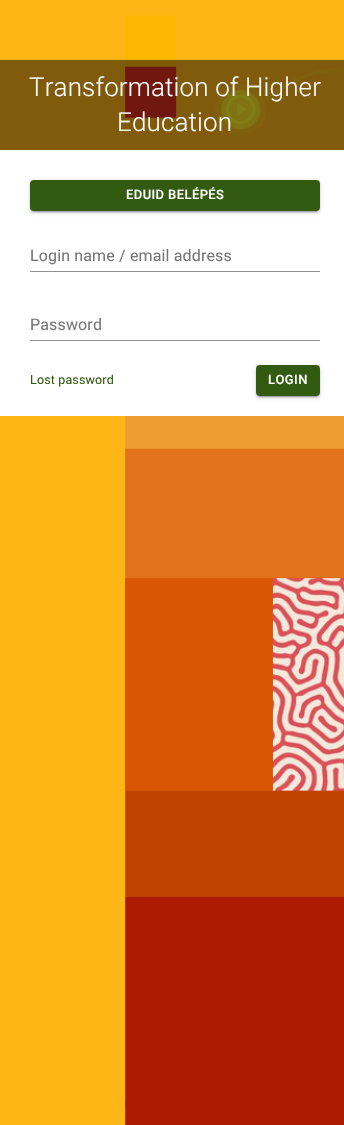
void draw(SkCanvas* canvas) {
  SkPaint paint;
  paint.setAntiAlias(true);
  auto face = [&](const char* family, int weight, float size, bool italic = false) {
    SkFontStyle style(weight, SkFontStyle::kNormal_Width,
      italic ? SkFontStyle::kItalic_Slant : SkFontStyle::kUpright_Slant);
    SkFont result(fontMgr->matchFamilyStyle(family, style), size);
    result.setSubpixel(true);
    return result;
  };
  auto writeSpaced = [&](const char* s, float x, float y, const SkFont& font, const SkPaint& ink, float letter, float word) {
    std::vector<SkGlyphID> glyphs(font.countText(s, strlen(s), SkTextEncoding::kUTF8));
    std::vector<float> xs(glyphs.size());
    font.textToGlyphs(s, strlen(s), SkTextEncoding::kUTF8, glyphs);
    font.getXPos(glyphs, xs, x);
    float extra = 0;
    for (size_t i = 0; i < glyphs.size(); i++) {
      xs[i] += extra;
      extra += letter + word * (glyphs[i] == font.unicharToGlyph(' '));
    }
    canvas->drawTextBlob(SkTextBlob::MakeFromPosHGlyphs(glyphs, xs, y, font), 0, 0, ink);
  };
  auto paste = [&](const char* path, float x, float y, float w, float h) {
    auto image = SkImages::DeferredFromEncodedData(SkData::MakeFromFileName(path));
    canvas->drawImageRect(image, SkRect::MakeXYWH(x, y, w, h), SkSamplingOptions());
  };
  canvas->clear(0xffffffff);
  paste("img/1.png", 0, 0, 344, 1125);
  paint.setColor(0x80000000);
  canvas->drawRect(SkRect::MakeXYWH(0, 60, 344, 90), paint);
  paint.setColor(0xffffffff);
  canvas->drawRect(SkRect::MakeXYWH(0, 150, 344, 266), paint);
  paint.setColor(0x1f000000);
  paint.setMaskFilter(SkMaskFilter::MakeBlur(kNormal_SkBlurStyle, 2.5f));
  canvas->drawRoundRect(SkRect::MakeXYWH(30, 181, 290, 31), 4, 4, paint);
  paint.setMaskFilter(nullptr);
  paint.setColor(0x24000000);
  paint.setMaskFilter(SkMaskFilter::MakeBlur(kNormal_SkBlurStyle, 1));
  canvas->drawRoundRect(SkRect::MakeXYWH(30, 182, 290, 31), 4, 4, paint);
  paint.setMaskFilter(nullptr);
  paint.setColor(0x33000000);
  paint.setMaskFilter(SkMaskFilter::MakeBlur(kNormal_SkBlurStyle, 0.5f));
  canvas->drawRoundRect(SkRect::MakeXYWH(32, 185, 286, 27), 2, 2, paint);
  paint.setMaskFilter(nullptr);
  paint.setColor(0xff325a10);
  canvas->drawRoundRect(SkRect::MakeXYWH(30, 180, 290, 31), 4, 4, paint);
  paint.setColor(0xff949494);
  canvas->drawRect(SkRect::MakeXYWH(30, 271, 290, 1), paint);
  canvas->drawRect(SkRect::MakeXYWH(30, 340, 290, 1), paint);
  paint.setColor(0x1f000000);
  paint.setMaskFilter(SkMaskFilter::MakeBlur(kNormal_SkBlurStyle, 2.5f));
  canvas->drawRoundRect(SkRect::MakeXYWH(256, 366, 64, 31), 4, 4, paint);
  paint.setMaskFilter(nullptr);
  paint.setColor(0x24000000);
  paint.setMaskFilter(SkMaskFilter::MakeBlur(kNormal_SkBlurStyle, 1));
  canvas->drawRoundRect(SkRect::MakeXYWH(256, 367, 64, 31), 4, 4, paint);
  paint.setMaskFilter(nullptr);
  paint.setColor(0x33000000);
  paint.setMaskFilter(SkMaskFilter::MakeBlur(kNormal_SkBlurStyle, 0.5f));
  canvas->drawRoundRect(SkRect::MakeXYWH(258, 370, 60, 27), 2, 2, paint);
  paint.setMaskFilter(nullptr);
  paint.setColor(0xff325a10);
  canvas->drawRoundRect(SkRect::MakeXYWH(256, 365, 64, 31), 4, 4, paint);
  auto f0 = face("Roboto", 300, 26);
  paint.setColor(0xffffffff);
  writeSpaced("Transformation of Higher", 29, 96, f0, paint, 0.15f, 0);
  writeSpaced("Education", 117, 131, f0, paint, 0.15f, 0);
  auto f1 = face("Roboto", 500, 13);
  writeSpaced("EDUID BELÉPÉS", 126, 199, f1, paint, 0.4f, 0);
  auto f2 = face("Roboto", 400, 16);
  paint.setColor(0xff757575);
  writeSpaced("Login name / email address", 30, 261, f2, paint, 0.15f, 0);
  writeSpaced("Password", 30, 330, f2, paint, 0.15f, 0);
  auto f3 = face("Roboto", 400, 12.5f);
  paint.setColor(0xff325a10);
  writeSpaced("Lost password", 30, 384, f3, paint, 0.15f, 0);
  paint.setColor(0xffffffff);
  writeSpaced("LOGIN", 268, 384, f1, paint, 0.4f, 0);
}
